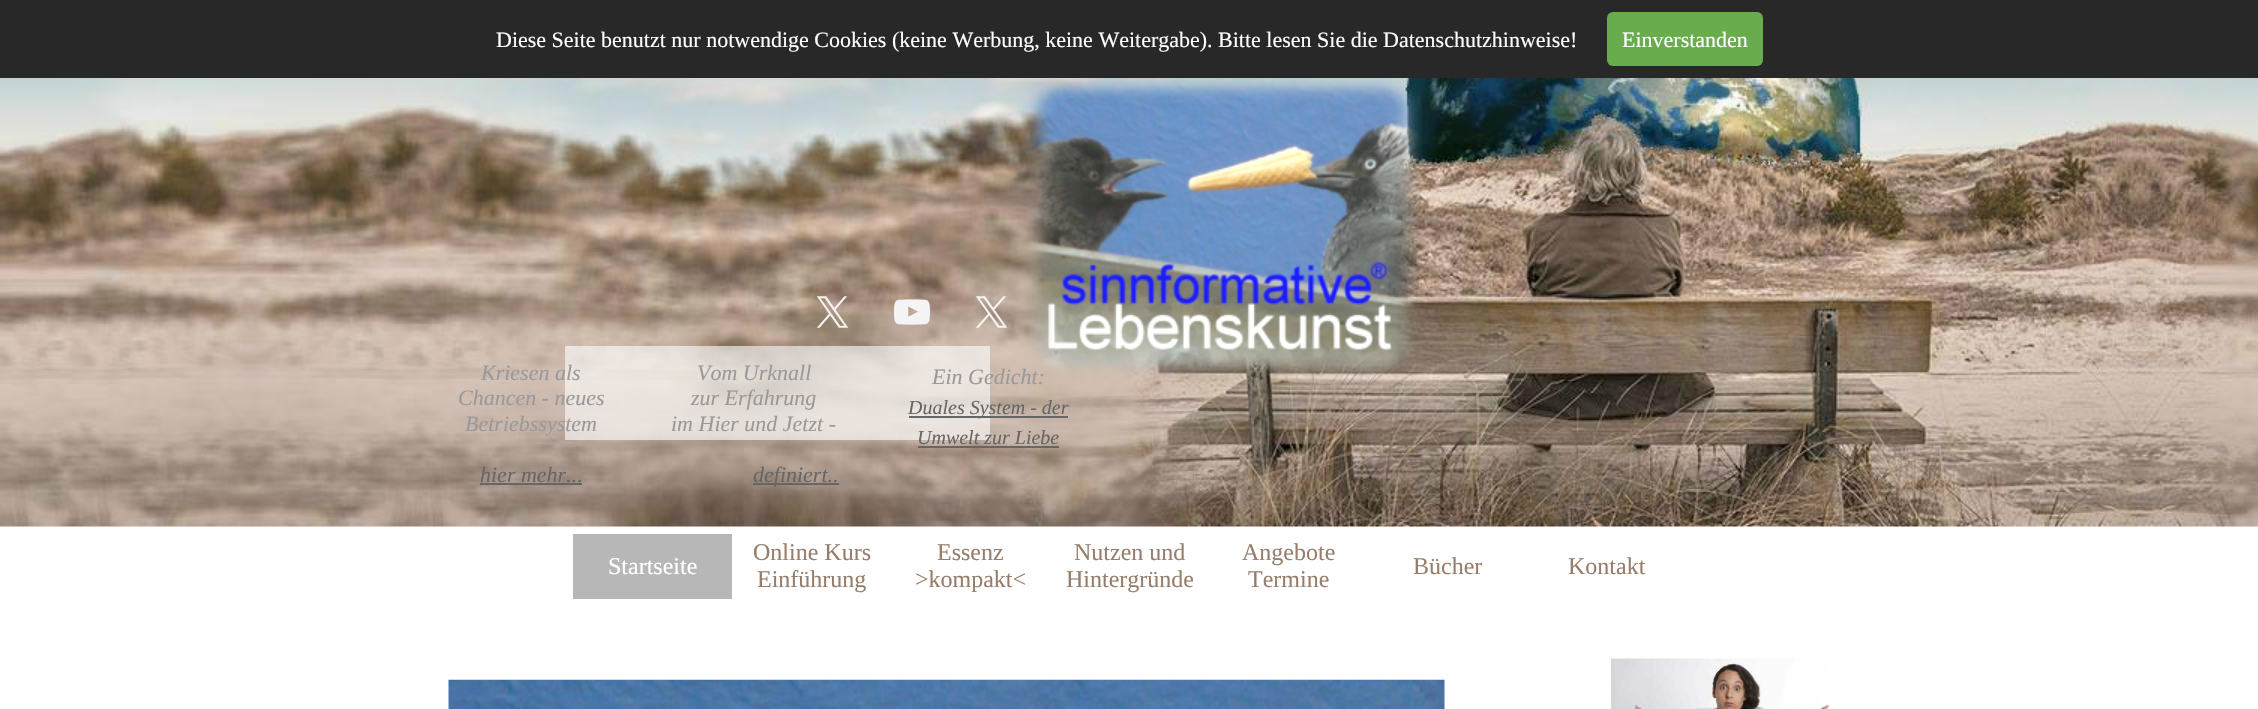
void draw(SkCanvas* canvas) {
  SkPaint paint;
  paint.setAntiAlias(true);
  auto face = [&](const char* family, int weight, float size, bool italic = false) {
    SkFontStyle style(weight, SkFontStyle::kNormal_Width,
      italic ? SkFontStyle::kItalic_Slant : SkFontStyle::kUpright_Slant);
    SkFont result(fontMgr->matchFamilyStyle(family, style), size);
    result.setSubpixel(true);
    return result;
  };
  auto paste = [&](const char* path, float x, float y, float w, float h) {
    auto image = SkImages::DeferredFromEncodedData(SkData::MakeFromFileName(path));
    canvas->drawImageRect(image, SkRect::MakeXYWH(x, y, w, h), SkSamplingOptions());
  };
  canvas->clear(0xffffffff);
  paint.setColor(0xff282828);
  canvas->drawRect(SkRect::MakeXYWH(0, 0, 2258, 78), paint);
  paint.setColor(0xff69ac4d);
  canvas->drawRoundRect(SkRect::MakeXYWH(1607, 12, 156, 54), 6, 6, paint);
  paste("img/1.png", 0, 78, 2258, 449);
  paste("img/2.png", 816, 296, 33, 32);
  paste("img/3.png", 894, 299, 36, 26);
  paste("img/4.png", 976, 296, 31, 32);
  {
    const struct { float x, y, w, h; SkColor color; } items[] = {
      {480, 483, 102, 2, 0xff666666},
      {565, 346, 425, 94, 0x99ffffff},
      {753, 483, 86, 2, 0xff666666},
      {909, 416, 159, 2, 0xff666666},
      {918, 446, 141, 2, 0xff666666},
      {573, 534, 159, 65, 0xffb7b7b7},
    };
    for (auto [x, y, w, h, color] : items) {
      paint.setColor(color);
      canvas->drawRect(SkRect::MakeXYWH(x, y, w, h), paint);
    }
  }
  paste("img/6.png", 448, 679, 997, 30);
  paste("img/7.png", 1611, 658, 219, 51);
  auto f0 = face("Liberation Serif", 400, 22);
  paint.setColor(0xffffffff);
  canvas->drawString("Diese Seite benutzt nur notwendige Cookies (keine Werbung, keine Weitergabe). Bitte lesen Sie die Datenschutzhinweise!", 496, 47, f0, paint);
  canvas->drawString("Einverstanden", 1622, 47, f0, paint);
  auto f1 = face("Liberation Serif", 400, 22, true);
  paint.setColor(0xff999999);
  {
    const struct { const char* s; float x, y; } items[] = {
      {"Kriesen als", 481, 380},
      {"Chancen - neues", 458, 405},
      {"Betriebssystem", 465, 431},
    };
    for (auto [s, x, y] : items) {
      canvas->drawString(s, x, y, f1, paint);
    }
  }
  paint.setColor(0xff666666);
  canvas->drawString("hier mehr...", 480, 482, f1, paint);
  paint.setColor(0xff999999);
  {
    const struct { const char* s; float x, y; } items[] = {
      {"Vom Urknall", 697, 380},
      {"zur Erfahrung", 691, 405},
      {"im Hier und Jetzt -", 671, 431},
    };
    for (auto [s, x, y] : items) {
      canvas->drawString(s, x, y, f1, paint);
    }
  }
  paint.setColor(0xff666666);
  canvas->drawString("definiert..", 753, 482, f1, paint);
  paint.setColor(0xff999999);
  canvas->drawString("Ein Gedicht:", 932, 384, f1, paint);
  paste("img/5.png", 1023, 78, 399, 298);
  auto f2 = face("Liberation Serif", 400, 20, true);
  paint.setColor(0xff666666);
  canvas->drawString("Duales System - der", 908, 414, f2, paint);
  canvas->drawString("Umwelt zur Liebe", 917, 444, f2, paint);
  auto f3 = face("Liberation Serif", 400, 24);
  paint.setColor(0xffffffff);
  canvas->drawString("Startseite", 608, 574, f3, paint);
  paint.setColor(0xff977e6c);
  {
    const struct { const char* s; float x, y; } items[] = {
      {"Online Kurs", 753, 560},
      {"Einführung", 757, 587},
      {"Essenz", 937, 560},
      {">kompakt<", 915, 587},
      {"Nutzen und", 1074, 560},
      {"Hintergründe", 1066, 587},
      {"Angebote", 1242, 560},
      {"Termine", 1248, 587},
      {"Bücher", 1413, 574},
      {"Kontakt", 1568, 574},
    };
    for (auto [s, x, y] : items) {
      canvas->drawString(s, x, y, f3, paint);
    }
  }
}
